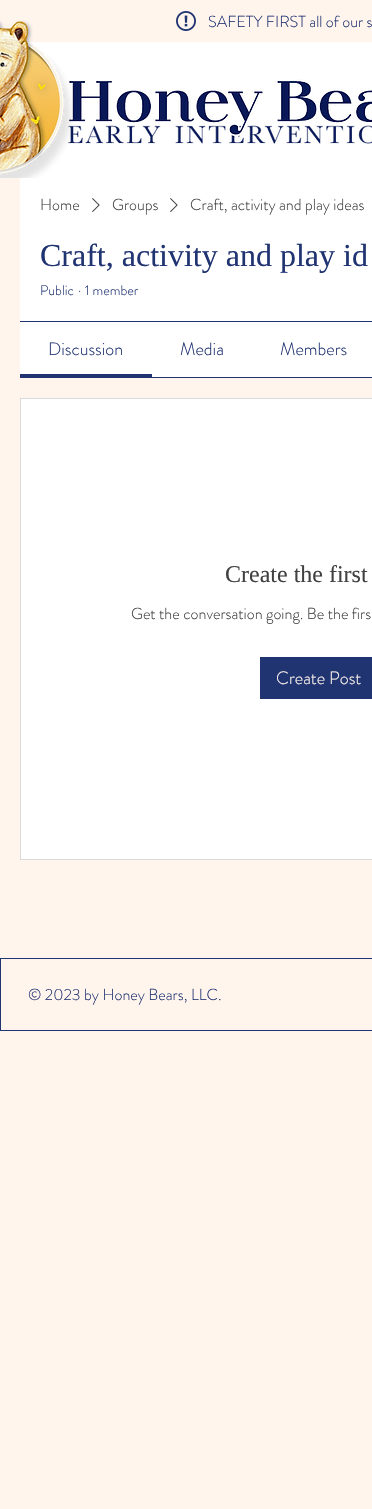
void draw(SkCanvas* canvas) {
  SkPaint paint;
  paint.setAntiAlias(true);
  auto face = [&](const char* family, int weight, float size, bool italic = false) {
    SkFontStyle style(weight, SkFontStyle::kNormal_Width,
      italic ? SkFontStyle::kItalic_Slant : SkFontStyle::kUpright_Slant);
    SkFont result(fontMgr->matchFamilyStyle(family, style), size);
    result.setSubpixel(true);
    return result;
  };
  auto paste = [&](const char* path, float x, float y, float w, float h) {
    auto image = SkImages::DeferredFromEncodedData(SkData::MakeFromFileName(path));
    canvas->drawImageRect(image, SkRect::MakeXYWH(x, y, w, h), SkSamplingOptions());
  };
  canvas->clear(0xfffff5ed);
  paint.setColor(0xffffffff);
  canvas->drawRect(SkRect::MakeXYWH(0, 42, 372, 136), paint);
  paste("img/3.png", 68, 79, 304, 65);
  paste("img/1.png", 0, 20, 73, 158);
  paste("img/2.png", 176, 11, 20, 20);
  canvas->drawRect(SkRect::MakeXYWH(20, 178, 352, 199), paint);
  paste("img/4.png", 92, 198, 8, 14);
  paste("img/4.png", 170, 198, 8, 14);
  {
    const struct { float x, y, w, h; SkColor color; } items[] = {
      {20, 321, 352, 1, 0xff213472},
      {20, 377, 352, 1, 0xff213472},
      {20, 374, 132, 3, 0xff213472},
    };
    for (auto [x, y, w, h, color] : items) {
      paint.setColor(color);
      canvas->drawRect(SkRect::MakeXYWH(x, y, w, h), paint);
    }
  }
  paint.setColor(0xffffffff);
  canvas->drawRect(SkRect::MakeXYWH(20.5f, 398.5f, 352, 461), paint);
  paint.setStroke(true);
  paint.setStrokeWidth(1);
  paint.setColor(0xffd9d9d9);
  canvas->drawRect(SkRect::MakeXYWH(20.5f, 398.5f, 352, 461), paint);
  paint.setStroke(false);
  {
    const struct { float x, y, w, h; SkColor color; } items[] = {
      {260, 657, 112, 42, 0xff213472},
      {0, 958, 372, 73, 0xff213472},
      {1, 959, 371, 71, 0xfffff5ed},
    };
    for (auto [x, y, w, h, color] : items) {
      paint.setColor(color);
      canvas->drawRect(SkRect::MakeXYWH(x, y, w, h), paint);
    }
  }
  auto f0 = face("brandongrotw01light", 300, 16);
  paint.setColor(0xff213472);
  canvas->drawString("SAFETY FIRST all of our s", 208, 27, f0, paint);
  paint.setColor(0xff414141);
  {
    const struct { const char* s; float x, y; } items[] = {
      {"Home", 40, 210},
      {"Groups", 112, 210},
      {"Craft, activity and play ideas", 190, 210},
    };
    for (auto [s, x, y] : items) {
      canvas->drawString(s, x, y, f0, paint);
    }
  }
  auto f1 = face("Liberation Serif", 400, 32);
  paint.setColor(0xff213472);
  canvas->drawString("Craft, activity and play id", 40, 266, f1, paint);
  auto f2 = face("brandongrotw01light", 300, 14);
  {
    const struct { const char* s; float x, y; } items[] = {
      {"Public", 40, 295},
      {"·", 78, 295},
      {"1 member", 85, 295},
    };
    for (auto [s, x, y] : items) {
      canvas->drawString(s, x, y, f2, paint);
    }
  }
  auto f3 = face("brandongrotw01light", 300, 18);
  {
    const struct { const char* s; float x, y; } items[] = {
      {"Discussion", 48, 355},
      {"Media", 180, 355},
      {"Members", 280, 355},
    };
    for (auto [s, x, y] : items) {
      canvas->drawString(s, x, y, f3, paint);
    }
  }
  auto f4 = face("Liberation Serif", 400, 24);
  paint.setColor(0xff414141);
  canvas->drawString("Create the first", 225, 582, f4, paint);
  canvas->drawString("Get the conversation going. Be the firs", 131, 619, f0, paint);
  paint.setColor(0xfffff5ed);
  canvas->drawString("Create Post", 276, 684, f3, paint);
  paint.setColor(0xff213472);
  canvas->drawString("© 2023 by Honey Bears, LLC.", 28, 1000, f0, paint);
}
